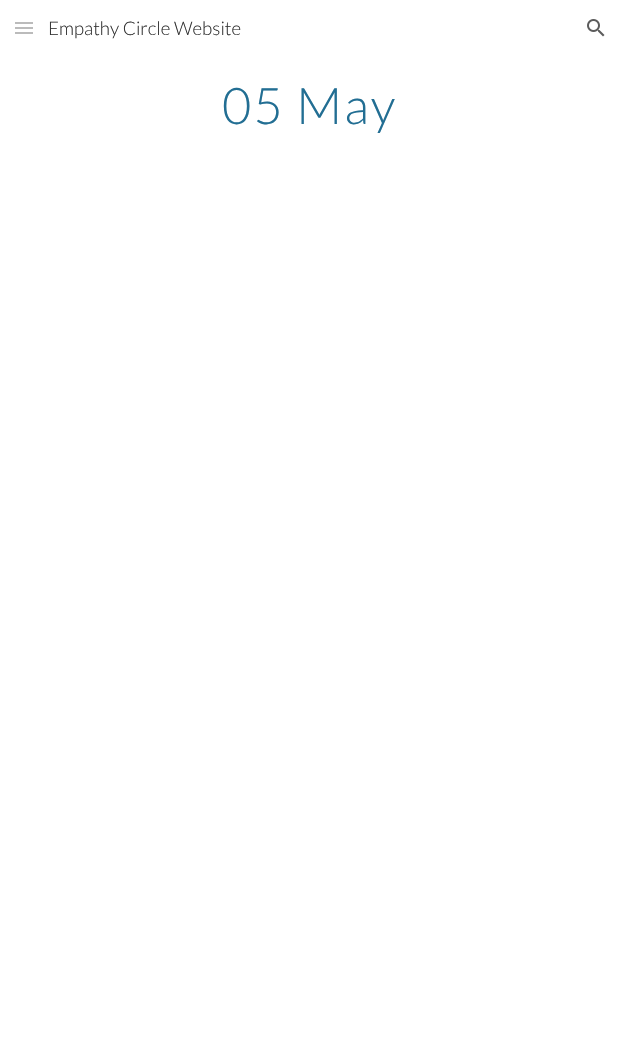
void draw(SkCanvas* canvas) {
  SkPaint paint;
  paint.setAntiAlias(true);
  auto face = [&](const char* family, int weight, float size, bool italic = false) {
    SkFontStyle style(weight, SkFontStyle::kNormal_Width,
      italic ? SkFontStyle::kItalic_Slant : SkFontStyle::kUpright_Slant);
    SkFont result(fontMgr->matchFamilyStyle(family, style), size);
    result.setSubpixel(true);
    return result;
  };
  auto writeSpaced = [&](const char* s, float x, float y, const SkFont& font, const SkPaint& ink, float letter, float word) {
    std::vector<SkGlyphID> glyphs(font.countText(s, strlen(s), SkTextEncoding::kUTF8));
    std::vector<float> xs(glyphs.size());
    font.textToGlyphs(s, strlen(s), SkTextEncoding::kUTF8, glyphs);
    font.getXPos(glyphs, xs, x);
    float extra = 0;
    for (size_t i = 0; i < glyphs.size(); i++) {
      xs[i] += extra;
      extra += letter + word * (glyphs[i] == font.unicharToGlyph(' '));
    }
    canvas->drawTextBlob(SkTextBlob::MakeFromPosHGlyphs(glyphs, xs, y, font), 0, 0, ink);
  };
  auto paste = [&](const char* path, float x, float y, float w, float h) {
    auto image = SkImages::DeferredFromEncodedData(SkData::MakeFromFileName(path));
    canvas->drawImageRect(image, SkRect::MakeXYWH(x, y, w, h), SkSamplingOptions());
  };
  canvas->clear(0xffffffff);
  {
    const struct { float x, y, w, h; SkColor color; } items[] = {
      {15, 22, 18, 2, 0xffbbbbbb},
      {15, 27, 18, 2, 0xffbbbbbb},
      {15, 32, 18, 2, 0xffbbbbbb},
    };
    for (auto [x, y, w, h, color] : items) {
      paint.setColor(color);
      canvas->drawRect(SkRect::MakeXYWH(x, y, w, h), paint);
    }
  }
  paste("img/1.png", 587, 19, 18, 18);
  auto f0 = face("Lato", 300, 18.75f);
  paint.setColor(0xff333333);
  canvas->drawString("Empathy Circle Website", 48, 35, f0, paint);
  auto f1 = face("Lato", 300, 50.5f);
  paint.setColor(0xff226e93);
  writeSpaced("05 May", 222, 124, f1, paint, 2, 0);
}
